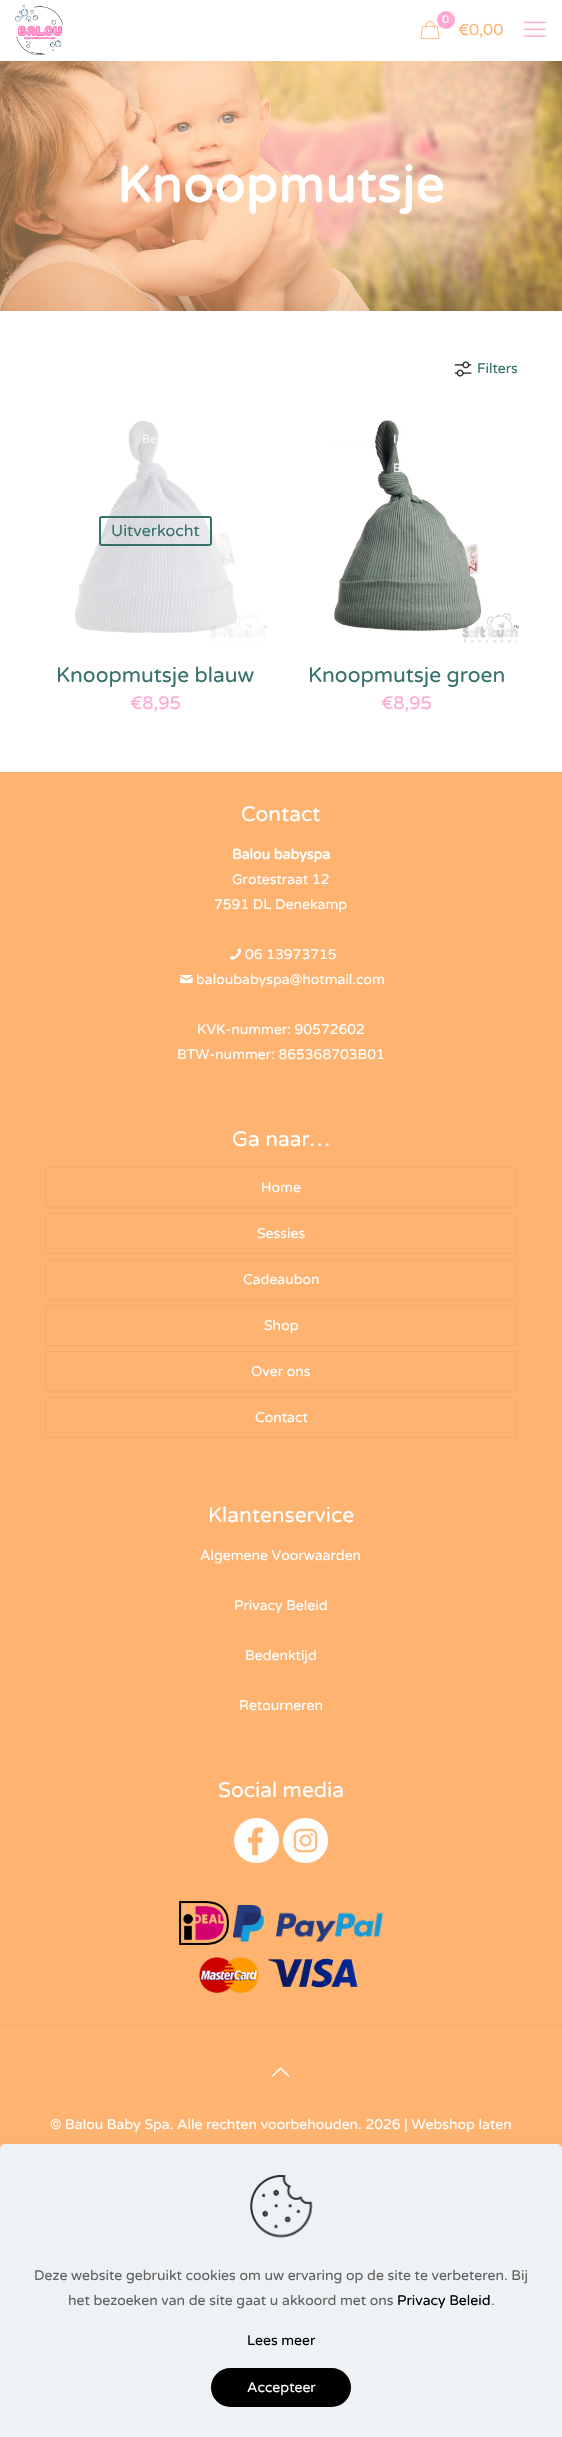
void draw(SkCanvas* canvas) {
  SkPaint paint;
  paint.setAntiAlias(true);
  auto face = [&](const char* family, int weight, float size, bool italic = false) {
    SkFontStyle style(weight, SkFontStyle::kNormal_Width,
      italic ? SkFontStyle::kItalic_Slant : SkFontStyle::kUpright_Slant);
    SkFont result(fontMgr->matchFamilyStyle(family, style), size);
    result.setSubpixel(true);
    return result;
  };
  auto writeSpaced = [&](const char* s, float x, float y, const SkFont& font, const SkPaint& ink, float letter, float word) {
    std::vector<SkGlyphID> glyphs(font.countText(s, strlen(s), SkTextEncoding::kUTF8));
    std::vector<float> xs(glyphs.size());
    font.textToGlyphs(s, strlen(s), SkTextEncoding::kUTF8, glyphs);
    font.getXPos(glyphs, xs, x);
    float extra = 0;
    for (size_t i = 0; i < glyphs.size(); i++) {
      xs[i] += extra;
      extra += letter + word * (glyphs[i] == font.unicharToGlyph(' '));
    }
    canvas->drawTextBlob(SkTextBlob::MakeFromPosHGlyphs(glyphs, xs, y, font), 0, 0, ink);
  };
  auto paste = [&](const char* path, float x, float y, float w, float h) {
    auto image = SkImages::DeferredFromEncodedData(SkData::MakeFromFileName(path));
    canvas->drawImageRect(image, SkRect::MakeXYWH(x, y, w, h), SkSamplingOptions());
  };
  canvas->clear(0xffffffff);
  paste("img/1.png", 0, 61, 562, 250);
  paste("img/2.png", 15, 5, 48, 50);
  paste("img/3.png", 524, 21, 22, 16);
  paste("img/4.png", 420, 20, 20, 20);
  paint.setColor(0xffffa9d2);
  canvas->drawCircle(446, 20, 9, paint);
  paint.setColor(0x80ffb370);
  canvas->drawRect(SkRect::MakeXYWH(0, 61, 562, 250), paint);
  paste("img/5.png", 454, 361, 18, 16);
  paste("img/6.png", 74, 421, 193, 221);
  paint.setStroke(true);
  paint.setStrokeWidth(2);
  paint.setColor(0xff37716c);
  canvas->drawRoundRect(SkRect::MakeXYWH(100, 517, 111, 28), 2, 2, paint);
  paste("img/7.png", 333, 419, 186, 224);
  paint.setStroke(false);
  paint.setColor(0xffffb370);
  canvas->drawRect(SkRect::MakeXYWH(0, 772, 562, 1377), paint);
  paste("img/8.png", 230, 948, 12, 12);
  paste("img/9.png", 180, 975, 13, 9);
  paint.setStroke(true);
  paint.setStrokeWidth(1);
  paint.setColor(0xfff5ac6c);
  canvas->drawRect(SkRect::MakeXYWH(45.5f, 1167.5f, 471, 40), paint);
  canvas->drawRect(SkRect::MakeXYWH(45.5f, 1213.5f, 471, 40), paint);
  canvas->drawRect(SkRect::MakeXYWH(45.5f, 1259.5f, 471, 40), paint);
  canvas->drawRect(SkRect::MakeXYWH(45.5f, 1305.5f, 471, 40), paint);
  canvas->drawRect(SkRect::MakeXYWH(45.5f, 1351.5f, 471, 40), paint);
  canvas->drawRect(SkRect::MakeXYWH(45.5f, 1397.5f, 471, 40), paint);
  paste("img/10.png", 234, 1818, 45, 45);
  paste("img/11.png", 283, 1818, 45, 45);
  paste("img/12.png", 179, 1901, 50, 44);
  paste("img/13.png", 233, 1905, 150, 38);
  paste("img/14.png", 199, 1957, 60, 36);
  paste("img/15.png", 268, 1958, 90, 30);
  paint.setStroke(false);
  paint.setColor(0xffffbb7e);
  canvas->drawRect(SkRect::MakeXYWH(0, 2031, 562, 1), paint);
  paste("img/16.png", 272, 2067, 18, 10);
  paint.setColor(0x21010727);
  paint.setMaskFilter(SkMaskFilter::MakeBlur(kNormal_SkBlurStyle, 15));
  canvas->drawRoundRect(SkRect::MakeXYWH(0, 2159, 562, 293), 5, 5, paint);
  paint.setMaskFilter(nullptr);
  paint.setColor(0xffeef2f5);
  canvas->drawRoundRect(SkRect::MakeXYWH(0, 2144, 562, 293), 5, 5, paint);
  paste("img/17.png", 250, 2175, 63, 63);
  paint.setColor(0xff000000);
  canvas->drawRoundRect(SkRect::MakeXYWH(211, 2368, 140, 39), 19.5f, 19.5f, paint);
  auto f0 = face("Varela Round", 400, 11);
  paint.setColor(0xffffffff);
  canvas->drawString("0", 442, 23, f0, paint);
  auto f1 = face("Varela Round", 400, 16);
  paint.setColor(0xffffb370);
  canvas->drawString("€0,00", 458, 35, f1, paint);
  auto f2 = face("Varela Round", 700, 50);
  paint.setColor(0xffffffff);
  writeSpaced("Knoopmutsje", 117, 202, f2, paint, 1, 0);
  auto f3 = face("Varela Round", 400, 14);
  paint.setColor(0xff37716c);
  canvas->drawString("Filters", 477, 373, f3, paint);
  auto f4 = face("Varela Round", 400, 12);
  paint.setColor(0xfff7f7f7);
  canvas->drawString("Be", 142, 443, f4, paint);
  paint.setColor(0xff37716c);
  canvas->drawString("Uitverkocht", 111, 536, f1, paint);
  auto f5 = face("Varela Round", 400, 21);
  canvas->drawString("Knoopmutsje blauw", 56, 682, f5, paint);
  auto f6 = face("Varela Round", 400, 18);
  paint.setColor(0xffffa9d2);
  canvas->drawString("€8,95", 130, 709, f6, paint);
  paint.setColor(0xfff7f7f7);
  canvas->drawString("I", 393, 443, f4, paint);
  canvas->drawString("B", 393, 472, f4, paint);
  paint.setColor(0xff37716c);
  canvas->drawString("Knoopmutsje groen", 308, 682, f5, paint);
  paint.setColor(0xffffa9d2);
  canvas->drawString("€8,95", 381, 709, f6, paint);
  paint.setColor(0xffffffff);
  canvas->drawString("Contact", 241, 821, f5, paint);
  auto f7 = face("Varela Round", 700, 14);
  canvas->drawString("Balou babyspa", 232, 859, f7, paint);
  {
    const struct { const char* s; float x, y; } items[] = {
      {"Grotestraat 12", 232, 884},
      {"7591 DL Denekamp", 214, 909},
      {"06 13973715", 245, 959},
      {"baloubabyspa@hotmail.com", 196, 984},
      {"KVK-nummer: 90572602", 197, 1034},
      {"BTW-nummer: 865368703B01", 177, 1059},
    };
    for (auto [s, x, y] : items) {
      canvas->drawString(s, x, y, f3, paint);
    }
  }
  canvas->drawString("Ga naar…", 232, 1146, f5, paint);
  {
    const struct { const char* s; float x, y; } items[] = {
      {"Home", 261, 1192},
      {"Sessies", 257, 1238},
      {"Cadeaubon", 243, 1284},
      {"Shop", 264, 1330},
      {"Over ons", 251, 1376},
      {"Contact", 255, 1422},
    };
    for (auto [s, x, y] : items) {
      canvas->drawString(s, x, y, f3, paint);
    }
  }
  canvas->drawString("Klantenservice", 208, 1522, f5, paint);
  {
    const struct { const char* s; float x, y; } items[] = {
      {"Algemene Voorwaarden", 200, 1560},
      {"Privacy Beleid", 234, 1610},
      {"Bedenktijd", 245, 1660},
      {"Retourneren", 239, 1710},
    };
    for (auto [s, x, y] : items) {
      canvas->drawString(s, x, y, f3, paint);
    }
  }
  canvas->drawString("Social media", 218, 1797, f5, paint);
  canvas->drawString("© Balou Baby Spa. Alle rechten voorbehouden. 2026 | Webshop laten", 50, 2129, f3, paint);
  paint.setColor(0xff626262);
  canvas->drawString("Deze website gebruikt cookies om uw ervaring op de site te verbeteren. Bij", 34, 2280, f3, paint);
  canvas->drawString("het bezoeken van de site gaat u akkoord met ons", 68, 2305, f3, paint);
  paint.setColor(0xff000000);
  canvas->drawString("Privacy Beleid", 397, 2305, f3, paint);
  paint.setColor(0xff626262);
  canvas->drawString(".", 491, 2305, f3, paint);
  paint.setColor(0xff000000);
  canvas->drawString("Lees meer", 247, 2345, f3, paint);
  paint.setColor(0xffffffff);
  canvas->drawString("Accepteer", 247, 2392, f3, paint);
}
